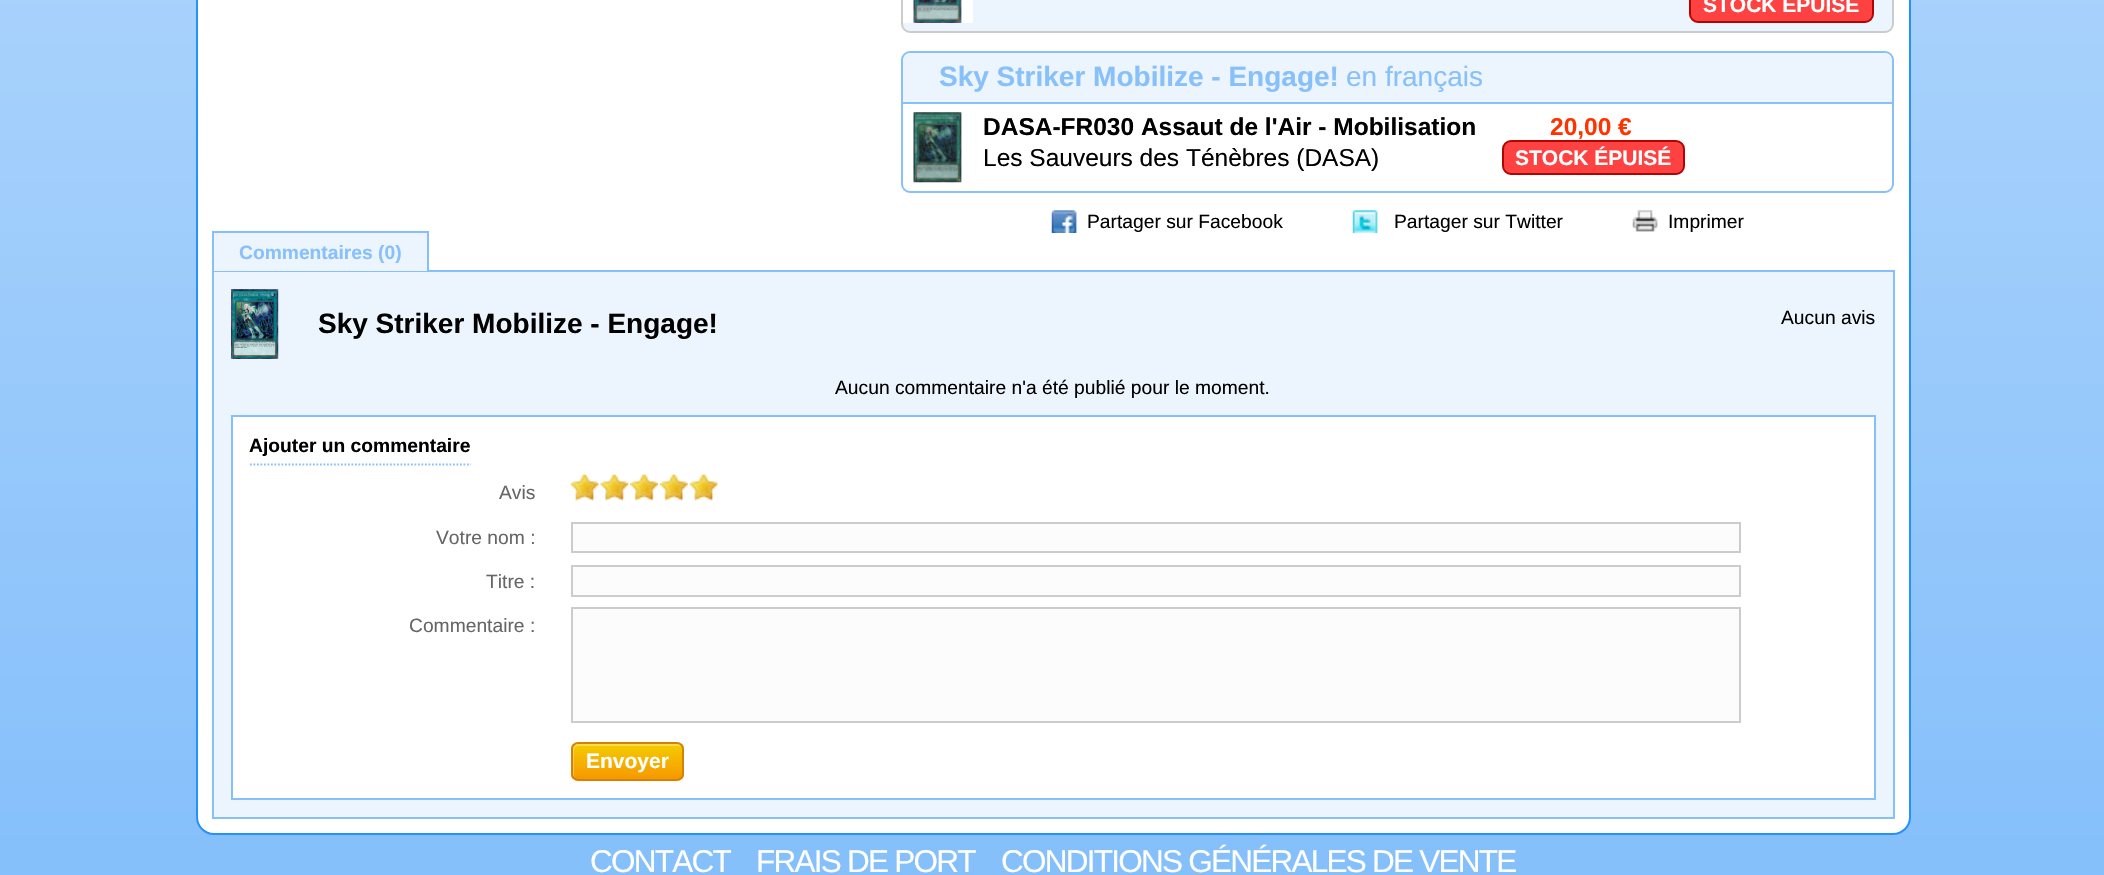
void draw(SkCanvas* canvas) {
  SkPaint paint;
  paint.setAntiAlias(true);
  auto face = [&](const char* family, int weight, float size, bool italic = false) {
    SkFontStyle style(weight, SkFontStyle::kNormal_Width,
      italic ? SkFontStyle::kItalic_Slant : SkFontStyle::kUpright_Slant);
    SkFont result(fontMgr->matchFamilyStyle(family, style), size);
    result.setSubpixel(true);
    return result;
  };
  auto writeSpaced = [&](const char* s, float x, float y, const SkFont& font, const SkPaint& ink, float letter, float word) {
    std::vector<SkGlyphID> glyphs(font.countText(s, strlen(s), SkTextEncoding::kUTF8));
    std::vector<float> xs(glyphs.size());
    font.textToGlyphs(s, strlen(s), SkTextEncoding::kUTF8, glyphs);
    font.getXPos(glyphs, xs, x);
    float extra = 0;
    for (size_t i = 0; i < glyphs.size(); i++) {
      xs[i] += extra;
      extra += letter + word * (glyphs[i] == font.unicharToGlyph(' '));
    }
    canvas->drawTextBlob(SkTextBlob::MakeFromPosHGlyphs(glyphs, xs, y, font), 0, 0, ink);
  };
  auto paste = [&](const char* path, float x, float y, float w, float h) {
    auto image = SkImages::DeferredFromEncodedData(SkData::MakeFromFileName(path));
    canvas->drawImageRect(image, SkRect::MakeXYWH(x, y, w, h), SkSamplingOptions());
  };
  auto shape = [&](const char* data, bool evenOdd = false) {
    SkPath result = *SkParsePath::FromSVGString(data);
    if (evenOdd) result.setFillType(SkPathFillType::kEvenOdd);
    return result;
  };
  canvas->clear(0xffffffff);
  {
    const SkColor colors[] = {0xff84bffb, 0xffedf5fd};
    const float stops[] = {0, 1};
    const SkPoint ends[] = {{0, 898}, {0, -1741}};
    paint.setShader(SkGradientShader::MakeLinear(ends, colors, stops, 2, SkTileMode::kClamp));
    paint.setAlpha(255);
  }
  canvas->drawRect(SkRect::MakeXYWH(0, 0, 2104, 875), paint);
  paint.setShader(nullptr);
  paint.setColor(0xffffffff);
  canvas->drawRoundRect(SkRect::MakeXYWH(197, -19, 1713, 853), 17, 17, paint);
  paint.setStroke(true);
  paint.setStrokeWidth(2);
  paint.setColor(0xff2591fe);
  canvas->drawRoundRect(SkRect::MakeXYWH(197, -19, 1713, 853), 17, 17, paint);
  paint.setStroke(false);
  paint.setColor(0xffecf5fd);
  canvas->drawRoundRect(SkRect::MakeXYWH(902, -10, 991, 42), 8, 8, paint);
  paint.setStroke(true);
  paint.setColor(0xffcccccc);
  canvas->drawRoundRect(SkRect::MakeXYWH(902, -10, 991, 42), 8, 8, paint);
  paste("img/1.png", 903, 0, 70, 23);
  paint.setStroke(false);
  paint.setColor(0xfffe4141);
  canvas->drawRoundRect(SkRect::MakeXYWH(1690, -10, 183, 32), 8, 8, paint);
  paint.setStroke(true);
  paint.setColor(0xffb20400);
  canvas->drawRoundRect(SkRect::MakeXYWH(1690, -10, 183, 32), 8, 8, paint);
  paint.setColor(0xff87c0fb);
  canvas->drawRoundRect(SkRect::MakeXYWH(902, 52, 991, 140), 8, 8, paint);
  paint.setStroke(false);
  paint.setColor(0xffecf5fd);
  canvas->drawPath(shape("M912 53H1883C1888 53 1892 57 1892 62V103H903V62C903 57 907 53 912 53Z"), paint);
  paint.setColor(0xff87c0fb);
  canvas->drawRect(SkRect::MakeXYWH(903, 102, 989, 2), paint);
  paste("img/2.png", 913, 112, 49, 71);
  paint.setColor(0xfffe4141);
  canvas->drawRoundRect(SkRect::MakeXYWH(1503, 141, 181, 33), 8, 8, paint);
  paint.setStroke(true);
  paint.setColor(0xffb20400);
  canvas->drawRoundRect(SkRect::MakeXYWH(1503, 141, 181, 33), 8, 8, paint);
  paste("img/3.png", 1051, 210, 26, 23);
  paste("img/4.png", 1352, 210, 26, 23);
  paste("img/5.png", 1632, 210, 26, 22);
  paint.setStroke(false);
  paint.setColor(0xffecf5fd);
  canvas->drawRect(SkRect::MakeXYWH(213, 271, 1681, 547), paint);
  paint.setStroke(true);
  paint.setColor(0xff86c0fb);
  canvas->drawRect(SkRect::MakeXYWH(213, 271, 1681, 547), paint);
  paint.setStroke(false);
  {
    const struct { float x, y, w, h; SkColor color; } items[] = {
      {214, 233, 213, 38, 0xffecf5fd},
      {212, 231, 217, 2, 0xff86c0fb},
      {427, 231, 2, 40, 0xff86c0fb},
      {212, 231, 2, 40, 0xff86c0fb},
    };
    for (auto [x, y, w, h, color] : items) {
      paint.setColor(color);
      canvas->drawRect(SkRect::MakeXYWH(x, y, w, h), paint);
    }
  }
  paste("img/6.png", 231, 289, 48, 70);
  paint.setColor(0xffffffff);
  canvas->drawRect(SkRect::MakeXYWH(232, 416, 1643, 383), paint);
  paint.setStroke(true);
  paint.setColor(0xff86c0fb);
  canvas->drawRect(SkRect::MakeXYWH(232, 416, 1643, 383), paint);
  paint.setStrokeWidth(1.8f);
  paint.setPathEffect(SkDashPathEffect::Make({{1.75f, 1.75f}}, 0));
  canvas->drawPath(shape("M250 464.5H471"), paint);
  paint.setPathEffect(nullptr);
  paste("img/7.png", 570, 474, 29, 27);
  paste("img/8.png", 600, 474, 29, 27);
  paste("img/9.png", 630, 474, 28, 27);
  paste("img/10.png", 659, 474, 29, 27);
  paste("img/7.png", 689, 474, 29, 27);
  paint.setStroke(false);
  paint.setColor(0xfffcfcfc);
  canvas->drawRect(SkRect::MakeXYWH(572, 523, 1168, 29), paint);
  paint.setStroke(true);
  paint.setStrokeWidth(2);
  paint.setColor(0xffcccccc);
  canvas->drawRect(SkRect::MakeXYWH(572, 523, 1168, 29), paint);
  paint.setStroke(false);
  paint.setColor(0xfffcfcfc);
  canvas->drawRect(SkRect::MakeXYWH(572, 566, 1168, 30), paint);
  paint.setStroke(true);
  paint.setColor(0xffcccccc);
  canvas->drawRect(SkRect::MakeXYWH(572, 566, 1168, 30), paint);
  paint.setStroke(false);
  paint.setColor(0xfffcfcfc);
  canvas->drawRect(SkRect::MakeXYWH(572, 608, 1168, 114), paint);
  paint.setStroke(true);
  paint.setColor(0xffcccccc);
  canvas->drawRect(SkRect::MakeXYWH(572, 608, 1168, 114), paint);
  canvas->save();
  canvas->clipPath(shape("M578 742H677C681 742 684 745 684 749V774C684 778 681 781 677 781H578C574 781 571 778 571 774V749C571 745 574 742 578 742Z"), true);
  paint.setStroke(false);
  {
    const SkColor colors[] = {0xfff4cc00, 0xfff79800};
    const float stops[] = {0, 1};
    const SkPoint ends[] = {{627, 744}, {627, 779}};
    paint.setShader(SkGradientShader::MakeLinear(ends, colors, stops, 2, SkTileMode::kClamp));
    paint.setAlpha(255);
  }
  canvas->drawRect(SkRect::MakeXYWH(571, 744, 113, 35), paint);
  canvas->restore();
  paint.setShader(nullptr);
  paint.setColor(0x4dffffff);
  canvas->drawPath(shape("M579 746H680L683 748C682 745 680 744 678 744H577C574 744 572 746 572 749V774C572 776 573 778 576 779C575 778 574 777 574 775V751C574 748 576 746 579 746Z"), paint);
  paint.setStroke(true);
  paint.setColor(0xffd38203);
  canvas->drawRoundRect(SkRect::MakeXYWH(572, 743, 111, 37), 6, 6, paint);
  auto f0 = face("Liberation Sans", 700, 21);
  paint.setStroke(false);
  paint.setColor(0xffffffff);
  canvas->drawString("STOCK ÉPUISÉ", 1703, 12, f0, paint);
  auto f1 = face("Liberation Sans", 700, 28);
  paint.setColor(0xff87c0fb);
  canvas->drawString("Sky Striker Mobilize - Engage!", 939, 86, f1, paint);
  auto f2 = face("Liberation Sans", 400, 28);
  canvas->drawString("en français", 1346, 86, f2, paint);
  auto f3 = face("Liberation Sans", 700, 24.5f);
  paint.setColor(0xff000000);
  canvas->drawString("DASA-FR030 Assaut de l'Air - Mobilisation", 983, 135, f3, paint);
  auto f4 = face("Liberation Sans", 400, 24.5f);
  canvas->drawString("Les Sauveurs des Ténèbres (DASA)", 983, 166, f4, paint);
  paint.setColor(0xffff3300);
  canvas->drawString("20,00 €", 1550, 135, f3, paint);
  paint.setColor(0xffffffff);
  canvas->drawString("STOCK ÉPUISÉ", 1515, 165, f0, paint);
  auto f5 = face("Liberation Sans", 400, 19.25f);
  paint.setColor(0xff000000);
  {
    const struct { const char* s; float x, y; } items[] = {
      {"Partager sur Facebook", 1087, 228},
      {"Partager sur Twitter", 1394, 228},
      {"Imprimer", 1668, 228},
    };
    for (auto [s, x, y] : items) {
      canvas->drawString(s, x, y, f5, paint);
    }
  }
  auto f6 = face("Liberation Sans", 700, 19.25f);
  paint.setColor(0xff87c0fb);
  canvas->drawString("Commentaires (0)", 239, 259, f6, paint);
  paint.setColor(0xff000000);
  canvas->drawString("Sky Striker Mobilize - Engage!", 318, 333, f1, paint);
  canvas->drawString("Aucun avis", 1781, 324, f5, paint);
  canvas->drawString("Aucun commentaire n'a été publié pour le moment.", 835, 394, f5, paint);
  canvas->drawString("Ajouter un commentaire", 249, 452, f6, paint);
  paint.setColor(0xff666666);
  {
    const struct { const char* s; float x, y; } items[] = {
      {"Avis", 499, 499},
      {"Votre nom :", 436, 544},
      {"Titre :", 486, 588},
      {"Commentaire :", 409, 632},
    };
    for (auto [s, x, y] : items) {
      canvas->drawString(s, x, y, f5, paint);
    }
  }
  paint.setColor(0xffffffff);
  canvas->drawString("Envoyer", 586, 768, f0, paint);
  auto f7 = face("Liberation Sans", 400, 31.5f);
  {
    const struct { const char* s; float x, y; } items[] = {
      {"CONTACT", 590, 872},
      {"FRAIS DE PORT", 756, 872},
      {"CONDITIONS GÉNÉRALES DE VENTE", 1001, 872},
    };
    for (auto [s, x, y] : items) {
      writeSpaced(s, x, y, f7, paint, -1.75f, 0);
    }
  }
}
